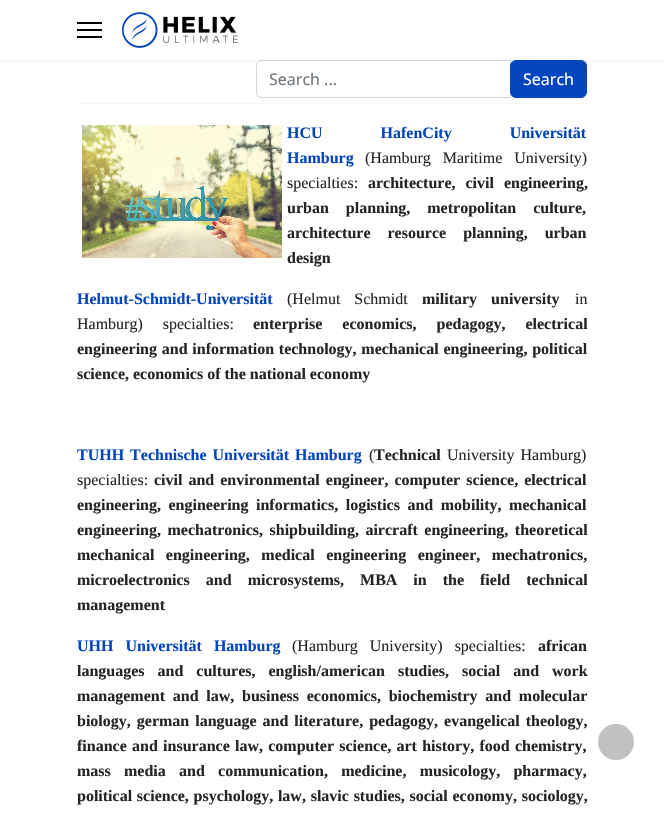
void draw(SkCanvas* canvas) {
  SkPaint paint;
  paint.setAntiAlias(true);
  auto face = [&](const char* family, int weight, float size, bool italic = false) {
    SkFontStyle style(weight, SkFontStyle::kNormal_Width,
      italic ? SkFontStyle::kItalic_Slant : SkFontStyle::kUpright_Slant);
    SkFont result(fontMgr->matchFamilyStyle(family, style), size);
    result.setSubpixel(true);
    return result;
  };
  auto writeSpaced = [&](const char* s, float x, float y, const SkFont& font, const SkPaint& ink, float letter, float word) {
    std::vector<SkGlyphID> glyphs(font.countText(s, strlen(s), SkTextEncoding::kUTF8));
    std::vector<float> xs(glyphs.size());
    font.textToGlyphs(s, strlen(s), SkTextEncoding::kUTF8, glyphs);
    font.getXPos(glyphs, xs, x);
    float extra = 0;
    for (size_t i = 0; i < glyphs.size(); i++) {
      xs[i] += extra;
      extra += letter + word * (glyphs[i] == font.unicharToGlyph(' '));
    }
    canvas->drawTextBlob(SkTextBlob::MakeFromPosHGlyphs(glyphs, xs, y, font), 0, 0, ink);
  };
  auto paste = [&](const char* path, float x, float y, float w, float h) {
    auto image = SkImages::DeferredFromEncodedData(SkData::MakeFromFileName(path));
    canvas->drawImageRect(image, SkRect::MakeXYWH(x, y, w, h), SkSamplingOptions());
  };
  auto shape = [&](const char* data, bool evenOdd = false) {
    SkPath result = *SkParsePath::FromSVGString(data);
    if (evenOdd) result.setFillType(SkPathFillType::kEvenOdd);
    return result;
  };
  canvas->clear(0xffffffff);
  paint.setStroke(true);
  paint.setStrokeWidth(1);
  paint.setColor(0xffededed);
  canvas->drawCircle(570, 60, 16.5f, paint);
  paint.setStroke(false);
  paint.setColor(0x1a000000);
  paint.setMaskFilter(SkMaskFilter::MakeBlur(kNormal_SkBlurStyle, 2));
  canvas->drawRect(SkRect::MakeXYWH(0, 0, 664, 60), paint);
  paint.setMaskFilter(nullptr);
  {
    const struct { float x, y, w, h; SkColor color; } items[] = {
      {0, 0, 664, 60, 0xffffffff},
      {77, 22, 25, 2, 0xff000000},
      {77, 29, 25, 2, 0xff000000},
      {77, 36, 25, 2, 0xff000000},
    };
    for (auto [x, y, w, h, color] : items) {
      paint.setColor(color);
      canvas->drawRect(SkRect::MakeXYWH(x, y, w, h), paint);
    }
  }
  paste("img/1.png", 122, 12, 117, 36);
  paint.setColor(0xffffffff);
  canvas->drawPath(shape("M262 60.5H510.5V97.5H262C259 97.5 256.5 95 256.5 92V66C256.5 63 259 60.5 262 60.5Z"), paint);
  paint.setStroke(true);
  paint.setColor(0xffced4da);
  canvas->drawPath(shape("M262 60.5H510.5V97.5H262C259 97.5 256.5 95 256.5 92V66C256.5 63 259 60.5 262 60.5Z"), paint);
  paint.setStroke(false);
  paint.setColor(0xff0345bf);
  canvas->drawRoundRect(SkRect::MakeXYWH(510.5f, 60.5f, 76, 37), 5.5f, 5.5f, paint);
  paint.setStroke(true);
  canvas->drawRoundRect(SkRect::MakeXYWH(510.5f, 60.5f, 76, 37), 5.5f, 5.5f, paint);
  paint.setStroke(false);
  paint.setColor(0xfff5f5f5);
  canvas->drawRect(SkRect::MakeXYWH(77, 103, 510, 1), paint);
  paste("img/2.png", 82, 125, 200, 133);
  paint.setColor(0xffc1c1c1);
  canvas->drawCircle(616, 742, 18, paint);
  auto f0 = face("Noto Sans", 400, 16);
  paint.setColor(0xff6c757d);
  canvas->drawString("Search ...", 269, 85, f0, paint);
  paint.setColor(0xffffffff);
  canvas->drawString("Search", 523, 85, f0, paint);
  auto f1 = face("Liberation Serif", 700, 16);
  paint.setColor(0xff0345bf);
  writeSpaced("HCU HafenCity Universität", 287, 138, f1, paint, 0, 54);
  canvas->drawString("Hamburg", 287, 163, f1, paint);
  auto f2 = face("Liberation Serif", 400, 16);
  paint.setColor(0xff252525);
  writeSpaced("(Hamburg Maritime University)", 365, 163, f2, paint, 0, 8);
  canvas->drawString("specialties:", 287, 188, f2, paint);
  writeSpaced("architecture, civil engineering,", 368, 188, f1, paint, 0, 6);
  writeSpaced("urban planning, metropolitan culture,", 287, 213, f1, paint, 0, 13);
  writeSpaced("architecture resource planning, urban", 287, 238, f1, paint, 0, 13);
  canvas->drawString("design", 287, 263, f1, paint);
  paint.setColor(0xff0345bf);
  canvas->drawString("Helmut-Schmidt-Universität", 77, 304, f1, paint);
  paint.setColor(0xff252525);
  writeSpaced("(Helmut Schmidt", 287, 304, f2, paint, 0, 10);
  writeSpaced("military university", 422, 304, f1, paint, 0, 10);
  canvas->drawString("in", 575, 304, f2, paint);
  writeSpaced("Hamburg) specialties:", 77, 329, f2, paint, 0, 16);
  writeSpaced("enterprise economics, pedagogy, electrical", 253, 329, f1, paint, 0, 16);
  writeSpaced("engineering and information technology, mechanical engineering, political", 77, 354, f1, paint, 0, 0.75f);
  canvas->drawString("science, economics of the national economy", 77, 379, f1, paint);
  paint.setColor(0xff0345bf);
  writeSpaced("TUHH Technische Universität Hamburg", 77, 460, f1, paint, 0, 2);
  paint.setColor(0xff252525);
  canvas->drawString("(", 369, 460, f2, paint);
  canvas->drawString("Technical", 374, 460, f1, paint);
  writeSpaced("University Hamburg)", 447, 460, f2, paint, 0, 2);
  canvas->drawString("specialties:", 77, 485, f2, paint);
  writeSpaced("civil and environmental engineer, computer science, electrical", 154, 485, f1, paint, 0, 2);
  writeSpaced("engineering, engineering informatics, logistics and mobility, mechanical", 77, 510, f1, paint, 0, 3.5f);
  writeSpaced("engineering, mechatronics, shipbuilding, aircraft engineering, theoretical", 77, 535, f1, paint, 0, 2.5f);
  writeSpaced("mechanical engineering, medical engineering engineer, mechatronics,", 77, 560, f1, paint, 0, 7.5f);
  writeSpaced("microelectronics and microsystems, MBA in the field technical", 77, 585, f1, paint, 0, 12);
  canvas->drawString("management", 77, 610, f1, paint);
  paint.setColor(0xff0345bf);
  writeSpaced("UHH Universität Hamburg", 77, 651, f1, paint, 0, 8);
  paint.setColor(0xff252525);
  writeSpaced("(Hamburg University) specialties:", 292, 651, f2, paint, 0, 8);
  canvas->drawString("african", 538, 651, f1, paint);
  writeSpaced("languages and cultures, english/american studies, social and work", 77, 676, f1, paint, 0, 9);
  writeSpaced("management and law, business economics, biochemistry and molecular", 77, 701, f1, paint, 0, 3.75f);
  writeSpaced("biology, german language and literature, pedagogy, evangelical theology,", 77, 726, f1, paint, 0, 2);
  writeSpaced("finance and insurance law, computer science, art history, food chemistry,", 77, 751, f1, paint, 0, 1.25f);
  writeSpaced("mass media and communication, medicine, musicology, pharmacy,", 77, 776, f1, paint, 0, 9.25f);
  writeSpaced("political science, psychology, law, slavic studies, social economy, sociology,", 77, 801, f1, paint, 0, 0.75f);
}
